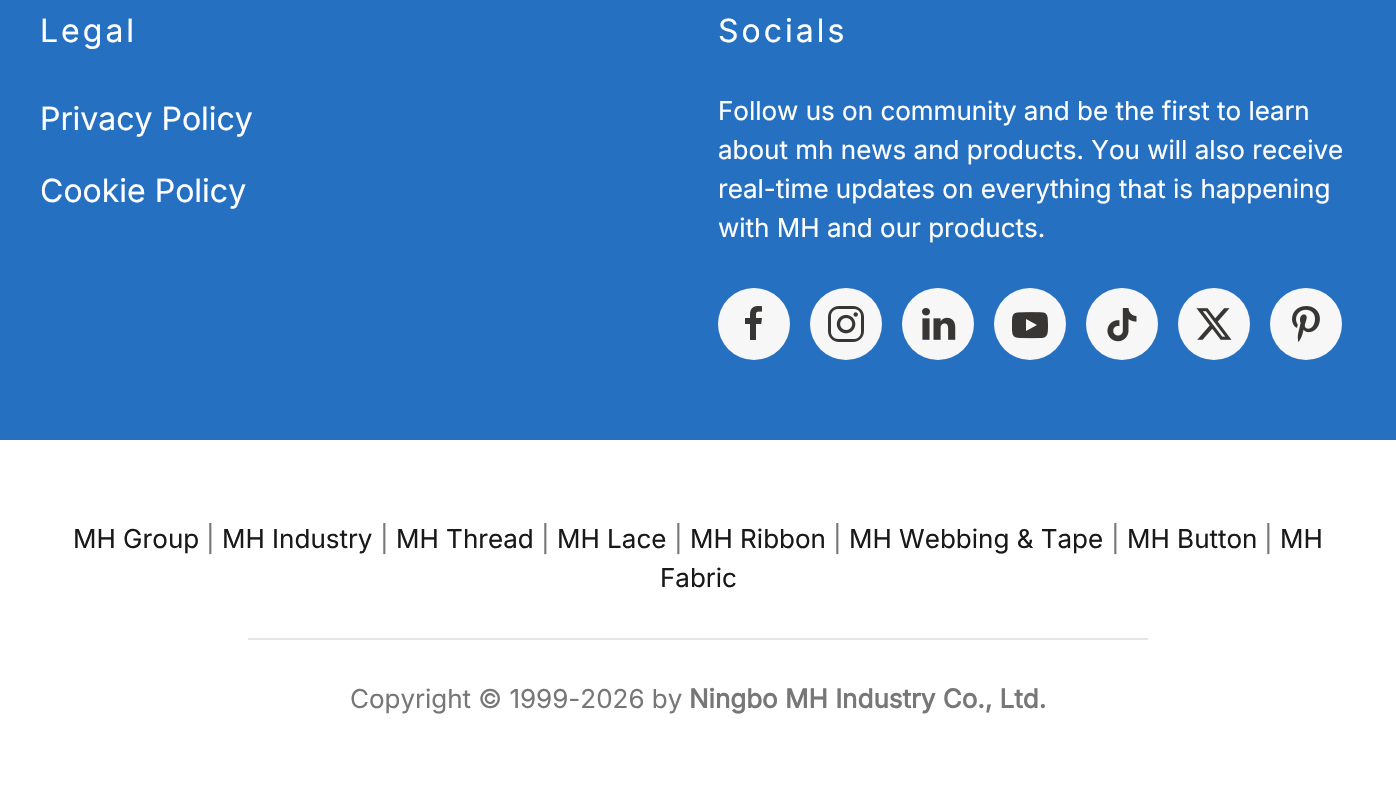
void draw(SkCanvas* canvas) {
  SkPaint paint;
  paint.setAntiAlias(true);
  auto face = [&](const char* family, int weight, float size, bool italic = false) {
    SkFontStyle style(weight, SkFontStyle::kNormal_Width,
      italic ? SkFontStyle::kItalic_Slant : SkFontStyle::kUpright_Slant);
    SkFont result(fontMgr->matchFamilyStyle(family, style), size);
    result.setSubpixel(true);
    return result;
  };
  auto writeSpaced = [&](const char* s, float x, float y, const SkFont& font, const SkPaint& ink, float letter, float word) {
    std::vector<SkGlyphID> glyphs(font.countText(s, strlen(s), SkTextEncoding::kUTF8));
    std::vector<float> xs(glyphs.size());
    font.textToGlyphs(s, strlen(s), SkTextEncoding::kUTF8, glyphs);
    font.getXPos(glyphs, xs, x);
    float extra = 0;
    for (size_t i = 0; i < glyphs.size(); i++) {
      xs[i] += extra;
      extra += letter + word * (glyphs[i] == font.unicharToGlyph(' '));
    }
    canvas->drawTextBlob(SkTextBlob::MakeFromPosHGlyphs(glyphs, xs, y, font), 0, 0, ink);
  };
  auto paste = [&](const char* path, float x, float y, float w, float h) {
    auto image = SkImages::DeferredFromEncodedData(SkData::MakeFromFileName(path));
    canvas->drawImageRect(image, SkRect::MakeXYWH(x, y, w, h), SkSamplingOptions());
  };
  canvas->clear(0xffffffff);
  paint.setColor(0xff2670c2);
  canvas->drawRect(SkRect::MakeXYWH(0, 0, 1396, 440), paint);
  paint.setColor(0xfff7f7f7);
  canvas->drawCircle(754, 324, 36, paint);
  paste("img/1.png", 745, 306, 17, 34);
  canvas->drawCircle(846, 324, 36, paint);
  paste("img/2.png", 828, 306, 36, 36);
  canvas->drawCircle(938, 324, 36, paint);
  paste("img/3.png", 922, 308, 34, 32);
  canvas->drawCircle(1030, 324, 36, paint);
  paste("img/4.png", 1012, 312, 36, 27);
  canvas->drawCircle(1122, 324, 36, paint);
  paste("img/5.png", 1107, 308, 30, 34);
  canvas->drawCircle(1214, 324, 36, paint);
  paste("img/6.png", 1196, 308, 36, 32);
  canvas->drawCircle(1306, 324, 36, paint);
  paste("img/7.png", 1292, 306, 28, 36);
  paint.setColor(0xffe5e5e7);
  canvas->drawRect(SkRect::MakeXYWH(248, 638, 900, 2), paint);
  auto f0 = face("Inter", 400, 32);
  paint.setColor(0xffffffff);
  writeSpaced("Legal", 40, 42, f0, paint, 3, 0);
  canvas->drawString("Privacy Policy", 40, 130, f0, paint);
  canvas->drawString("Cookie Policy", 40, 202, f0, paint);
  writeSpaced("Socials", 718, 42, f0, paint, 3, 0);
  auto f1 = face("Inter", 400, 26);
  {
    const struct { const char* s; float x, y; } items[] = {
      {"Follow us on community and be the first to learn", 718, 120},
      {"about mh news and products. You will also receive", 718, 159},
      {"real-time updates on everything that is happening", 718, 198},
      {"with MH and our products.", 718, 237},
    };
    for (auto [s, x, y] : items) {
      canvas->drawString(s, x, y, f1, paint);
    }
  }
  paint.setColor(0xff191919);
  canvas->drawString("MH Group", 73, 548, f1, paint);
  paint.setColor(0xff777777);
  canvas->drawString("|", 206, 548, f1, paint);
  paint.setColor(0xff191919);
  canvas->drawString("MH Industry", 222, 548, f1, paint);
  paint.setColor(0xff777777);
  canvas->drawString("|", 380, 548, f1, paint);
  paint.setColor(0xff191919);
  canvas->drawString("MH Thread", 396, 548, f1, paint);
  paint.setColor(0xff777777);
  canvas->drawString("|", 541, 548, f1, paint);
  paint.setColor(0xff191919);
  canvas->drawString("MH Lace", 557, 548, f1, paint);
  paint.setColor(0xff777777);
  canvas->drawString("|", 674, 548, f1, paint);
  paint.setColor(0xff191919);
  canvas->drawString("MH Ribbon", 690, 548, f1, paint);
  paint.setColor(0xff777777);
  canvas->drawString("|", 833, 548, f1, paint);
  paint.setColor(0xff191919);
  canvas->drawString("MH Webbing & Tape", 849, 548, f1, paint);
  paint.setColor(0xff777777);
  canvas->drawString("|", 1111, 548, f1, paint);
  paint.setColor(0xff191919);
  canvas->drawString("MH Button", 1127, 548, f1, paint);
  paint.setColor(0xff777777);
  canvas->drawString("|", 1264, 548, f1, paint);
  paint.setColor(0xff191919);
  canvas->drawString("MH", 1280, 548, f1, paint);
  canvas->drawString("Fabric", 660, 587, f1, paint);
  paint.setColor(0xff777777);
  canvas->drawString("Copyright © 1999-2026 by", 350, 708, f1, paint);
  auto f2 = face("Inter", 700, 26);
  canvas->drawString("Ningbo MH Industry Co., Ltd.", 689, 708, f2, paint);
}
